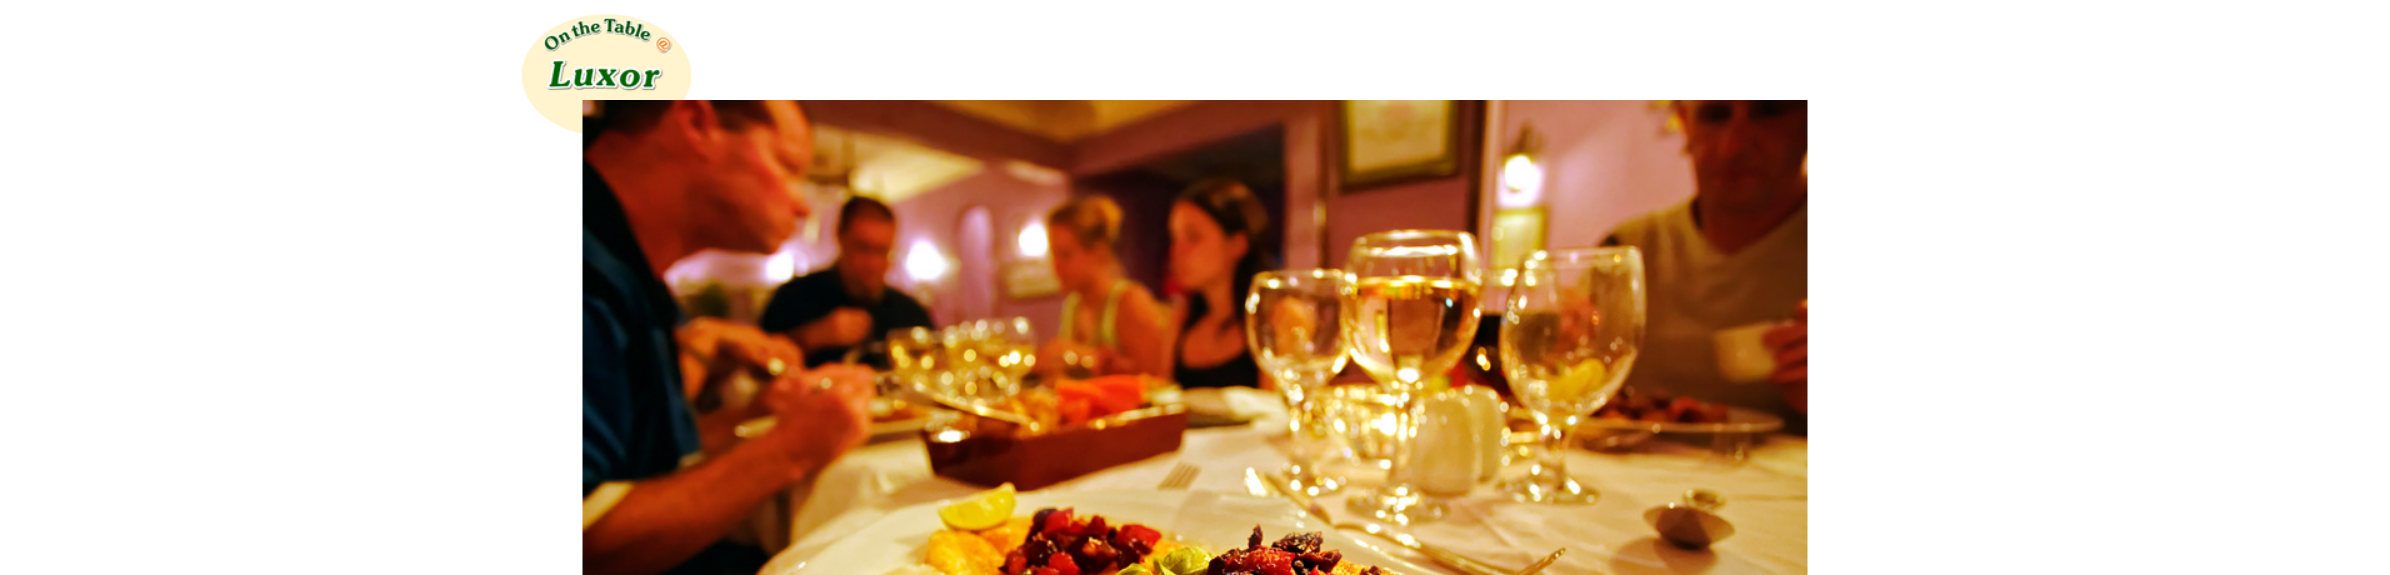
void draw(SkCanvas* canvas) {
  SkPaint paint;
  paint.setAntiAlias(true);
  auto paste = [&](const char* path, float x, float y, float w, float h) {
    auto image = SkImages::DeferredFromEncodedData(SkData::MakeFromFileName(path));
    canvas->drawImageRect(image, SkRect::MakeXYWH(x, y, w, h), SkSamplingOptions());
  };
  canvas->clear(0xffffffff);
  paste("img/1.png", 521, 13, 171, 124);
  paste("img/2.png", 582, 100, 1226, 475);
}
